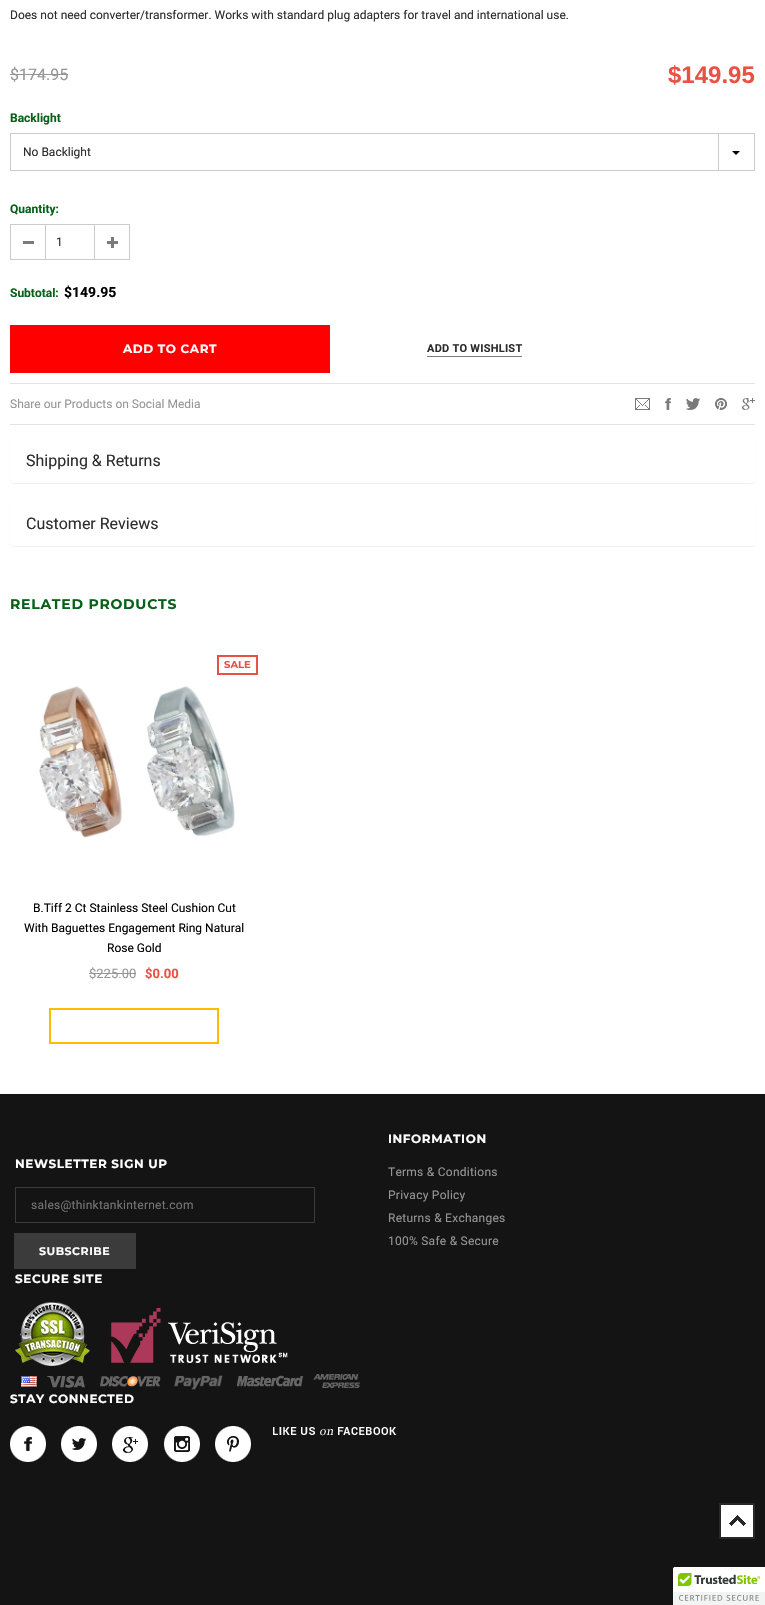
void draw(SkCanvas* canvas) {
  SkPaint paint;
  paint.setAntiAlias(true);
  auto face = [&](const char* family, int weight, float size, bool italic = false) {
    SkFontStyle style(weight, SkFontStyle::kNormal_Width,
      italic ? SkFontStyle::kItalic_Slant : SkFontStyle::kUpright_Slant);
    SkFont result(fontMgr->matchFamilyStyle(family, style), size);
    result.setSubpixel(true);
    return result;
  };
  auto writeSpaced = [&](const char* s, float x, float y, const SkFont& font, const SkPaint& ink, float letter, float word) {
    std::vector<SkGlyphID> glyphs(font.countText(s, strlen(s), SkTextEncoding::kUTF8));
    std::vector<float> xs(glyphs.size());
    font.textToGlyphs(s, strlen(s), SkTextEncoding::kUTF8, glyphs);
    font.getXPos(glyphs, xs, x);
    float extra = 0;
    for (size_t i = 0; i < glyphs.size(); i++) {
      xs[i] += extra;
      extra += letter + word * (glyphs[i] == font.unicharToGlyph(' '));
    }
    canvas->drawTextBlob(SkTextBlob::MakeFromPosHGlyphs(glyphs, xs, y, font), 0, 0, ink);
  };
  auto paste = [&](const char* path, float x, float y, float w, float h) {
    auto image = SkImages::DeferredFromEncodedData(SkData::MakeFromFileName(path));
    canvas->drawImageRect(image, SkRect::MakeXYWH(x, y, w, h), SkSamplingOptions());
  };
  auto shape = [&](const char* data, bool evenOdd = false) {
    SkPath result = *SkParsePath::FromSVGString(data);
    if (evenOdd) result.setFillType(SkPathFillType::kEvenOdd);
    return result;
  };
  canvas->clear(0xffffffff);
  paint.setColor(0xff969696);
  canvas->drawRect(SkRect::MakeXYWH(10, 74, 58, 1), paint);
  paint.setStroke(true);
  paint.setStrokeWidth(1);
  paint.setColor(0xffcbcbcb);
  canvas->drawRect(SkRect::MakeXYWH(10.5f, 133.5f, 744, 37), paint);
  paint.setStroke(false);
  canvas->drawRect(SkRect::MakeXYWH(718, 134, 1, 36), paint);
  paint.setColor(0xff000000);
  canvas->drawPath(shape("M732 151H740L736 155Z"), paint);
  {
    const struct { float x, y, w, h; SkColor color; } items[] = {
      {23, 241, 11, 3, 0xff7b7b7b},
      {10, 224, 35, 1, 0xffcbcbcb},
      {10, 259, 35, 1, 0xffcbcbcb},
      {10, 224, 1, 36, 0xffcbcbcb},
    };
    for (auto [x, y, w, h, color] : items) {
      paint.setColor(color);
      canvas->drawRect(SkRect::MakeXYWH(x, y, w, h), paint);
    }
  }
  paint.setStroke(true);
  canvas->drawRect(SkRect::MakeXYWH(45.5f, 224.5f, 49, 35), paint);
  paste("img/1.png", 107, 237, 11, 11);
  paint.setStroke(false);
  {
    const struct { float x, y, w, h; SkColor color; } items[] = {
      {95, 224, 35, 1, 0xffcbcbcb},
      {129, 224, 1, 36, 0xffcbcbcb},
      {95, 259, 35, 1, 0xffcbcbcb},
    };
    for (auto [x, y, w, h, color] : items) {
      paint.setColor(color);
      canvas->drawRect(SkRect::MakeXYWH(x, y, w, h), paint);
    }
  }
  paint.setColor(0xffff0000);
  canvas->drawRect(SkRect::MakeXYWH(11, 326, 318, 46), paint);
  paint.setStroke(true);
  paint.setStrokeWidth(2);
  paint.setColor(0xfff20505);
  canvas->drawRect(SkRect::MakeXYWH(11, 326, 318, 46), paint);
  paint.setStroke(false);
  {
    const struct { float x, y, w, h; SkColor color; } items[] = {
      {427, 356, 95, 1, 0xff7b7b7b},
      {10, 383, 745, 1, 0xffe3e3e3},
      {10, 424, 745, 1, 0xffe3e3e3},
    };
    for (auto [x, y, w, h, color] : items) {
      paint.setColor(color);
      canvas->drawRect(SkRect::MakeXYWH(x, y, w, h), paint);
    }
  }
  paste("img/2.png", 635, 398, 15, 12);
  paste("img/3.png", 665, 398, 6, 12);
  paste("img/4.png", 686, 398, 14, 12);
  paste("img/5.png", 715, 398, 12, 12);
  paste("img/6.png", 742, 398, 13, 12);
  paint.setColor(0x0d000000);
  paint.setMaskFilter(SkMaskFilter::MakeBlur(kNormal_SkBlurStyle, 0.5f));
  canvas->drawRoundRect(SkRect::MakeXYWH(10, 441, 745, 43), 4, 4, paint);
  paint.setMaskFilter(nullptr);
  paint.setColor(0xffffffff);
  canvas->drawRoundRect(SkRect::MakeXYWH(10, 440, 745, 43), 4, 4, paint);
  paint.setColor(0x0d000000);
  paint.setMaskFilter(SkMaskFilter::MakeBlur(kNormal_SkBlurStyle, 0.5f));
  canvas->drawRoundRect(SkRect::MakeXYWH(10, 504, 745, 43), 4, 4, paint);
  paint.setMaskFilter(nullptr);
  paint.setColor(0xffffffff);
  canvas->drawRoundRect(SkRect::MakeXYWH(10, 503, 745, 43), 4, 4, paint);
  paint.setStroke(true);
  paint.setColor(0xffe95144);
  canvas->drawRect(SkRect::MakeXYWH(218, 656, 39, 18), paint);
  paste("img/7.png", 39, 686, 196, 152);
  paint.setColor(0xffffbb00);
  canvas->drawRect(SkRect::MakeXYWH(50, 1009, 168, 34), paint);
  paint.setStroke(false);
  paint.setColor(0xff969696);
  canvas->drawRect(SkRect::MakeXYWH(89, 973, 47, 1), paint);
  paint.setColor(0xff141414);
  canvas->drawRect(SkRect::MakeXYWH(0, 1094, 765, 511), paint);
  paint.setStroke(true);
  paint.setStrokeWidth(1);
  paint.setColor(0xff3b3b3b);
  canvas->drawRect(SkRect::MakeXYWH(15.5f, 1187.5f, 299, 35), paint);
  paint.setStroke(false);
  canvas->drawRect(SkRect::MakeXYWH(14, 1233, 122, 36), paint);
  paste("img/8.png", 15, 1302, 75, 64);
  paste("img/9.png", 111, 1308, 177, 55);
  paste("img/10.png", 21, 1374, 339, 16);
  paste("img/11.png", 10, 1426, 36, 36);
  paste("img/12.png", 61, 1426, 36, 36);
  paste("img/13.png", 112, 1426, 36, 36);
  paste("img/14.png", 164, 1426, 36, 36);
  paste("img/15.png", 215, 1426, 36, 36);
  paste("img/16.png", 273, 1427, 124, 9);
  paint.setColor(0xffffffff);
  canvas->drawRect(SkRect::MakeXYWH(721, 1505, 32, 32), paint);
  paste("img/17.png", 719, 1503, 36, 36);
  canvas->drawPath(shape("M675 1567H765V1605H673V1569C673 1568 674 1567 675 1567Z"), paint);
  paste("img/18.png", 673, 1567, 92, 38);
  auto f0 = face("Roboto", 400, 12);
  paint.setColor(0xff2d2d2d);
  canvas->drawString("Does not need converter/transformer. Works with standard plug adapters for travel and international use.", 10, 19, f0, paint);
  auto f1 = face("Roboto", 400, 16);
  paint.setColor(0xff969696);
  canvas->drawString("$174.95", 10, 80, f1, paint);
  auto f2 = face("Liberation Sans", 700, 24);
  paint.setColor(0xffe95144);
  canvas->drawString("$149.95", 668, 83, f2, paint);
  auto f3 = face("Roboto", 700, 12);
  paint.setColor(0xff076119);
  canvas->drawString("Backlight", 10, 122, f3, paint);
  paint.setColor(0xff2d2d2d);
  canvas->drawString("No Backlight", 23, 156, f0, paint);
  paint.setColor(0xff076119);
  canvas->drawString("Quantity:", 10, 213, f3, paint);
  paint.setColor(0xff2d2d2d);
  canvas->drawString("1", 56, 246, f0, paint);
  paint.setColor(0xff076119);
  canvas->drawString("Subtotal:", 10, 297, f3, paint);
  auto f4 = face("Roboto", 700, 14);
  paint.setColor(0xff000000);
  canvas->drawString("$149.95", 64, 297, f4, paint);
  auto f5 = face("Montserrat", 700, 12);
  paint.setColor(0xffffffff);
  writeSpaced("ADD TO CART", 123, 353, f5, paint, 0.6f, 0);
  auto f6 = face("Roboto", 700, 11);
  paint.setColor(0xff2d2d2d);
  writeSpaced("ADD TO WISHLIST", 427, 352, f6, paint, 0.25f, 0);
  paint.setColor(0xff969696);
  canvas->drawString("Share our Products on Social Media", 10, 408, f0, paint);
  paint.setColor(0xff2d2d2d);
  canvas->drawString("Shipping & Returns", 26, 466, f1, paint);
  canvas->drawString("Customer Reviews", 26, 529, f1, paint);
  auto f7 = face("Montserrat", 700, 14);
  paint.setColor(0xff076119);
  writeSpaced("RELATED PRODUCTS", 10, 609, f7, paint, 0.75f, 0);
  auto f8 = face("Montserrat", 700, 10);
  paint.setColor(0xffe95144);
  canvas->drawString("SALE", 224, 668, f8, paint);
  paint.setColor(0xff000000);
  {
    const struct { const char* s; float x, y; } items[] = {
      {"B.Tiff 2 Ct Stainless Steel Cushion Cut", 33, 912},
      {"With Baguettes Engagement Ring Natural", 24, 932},
      {"Rose Gold", 107, 952},
    };
    for (auto [s, x, y] : items) {
      canvas->drawString(s, x, y, f0, paint);
    }
  }
  auto f9 = face("Roboto", 400, 13);
  paint.setColor(0xff969696);
  canvas->drawString("$225.00", 89, 978, f9, paint);
  auto f10 = face("Roboto", 700, 13);
  paint.setColor(0xffe95144);
  canvas->drawString("$0.00", 145, 978, f10, paint);
  paint.setColor(0xffffffff);
  writeSpaced("NEWSLETTER SIGN UP", 15, 1168, f5, paint, 0.6f, 0);
  paint.setColor(0xff757575);
  writeSpaced("sales@thinktankinternet.com", 31, 1209, f0, paint, 0.25f, 0);
  auto f11 = face("Montserrat", 700, 11);
  paint.setColor(0xffffffff);
  writeSpaced("SUBSCRIBE", 39, 1255, f11, paint, 0.5f, 0);
  writeSpaced("INFORMATION", 388, 1143, f5, paint, 0.6f, 0);
  paint.setColor(0xff969696);
  {
    const struct { const char* s; float x, y; } items[] = {
      {"Terms & Conditions", 388, 1176},
      {"Privacy Policy", 388, 1199},
      {"Returns & Exchanges", 388, 1222},
      {"100% Safe & Secure", 388, 1245},
    };
    for (auto [s, x, y] : items) {
      writeSpaced(s, x, y, f0, paint, 0.25f, 0);
    }
  }
  paint.setColor(0xffffffff);
  writeSpaced("SECURE SITE", 15, 1283, f5, paint, 0.6f, 0);
  writeSpaced("STAY CONNECTED", 10, 1403, f5, paint, 0.6f, 0);
}
